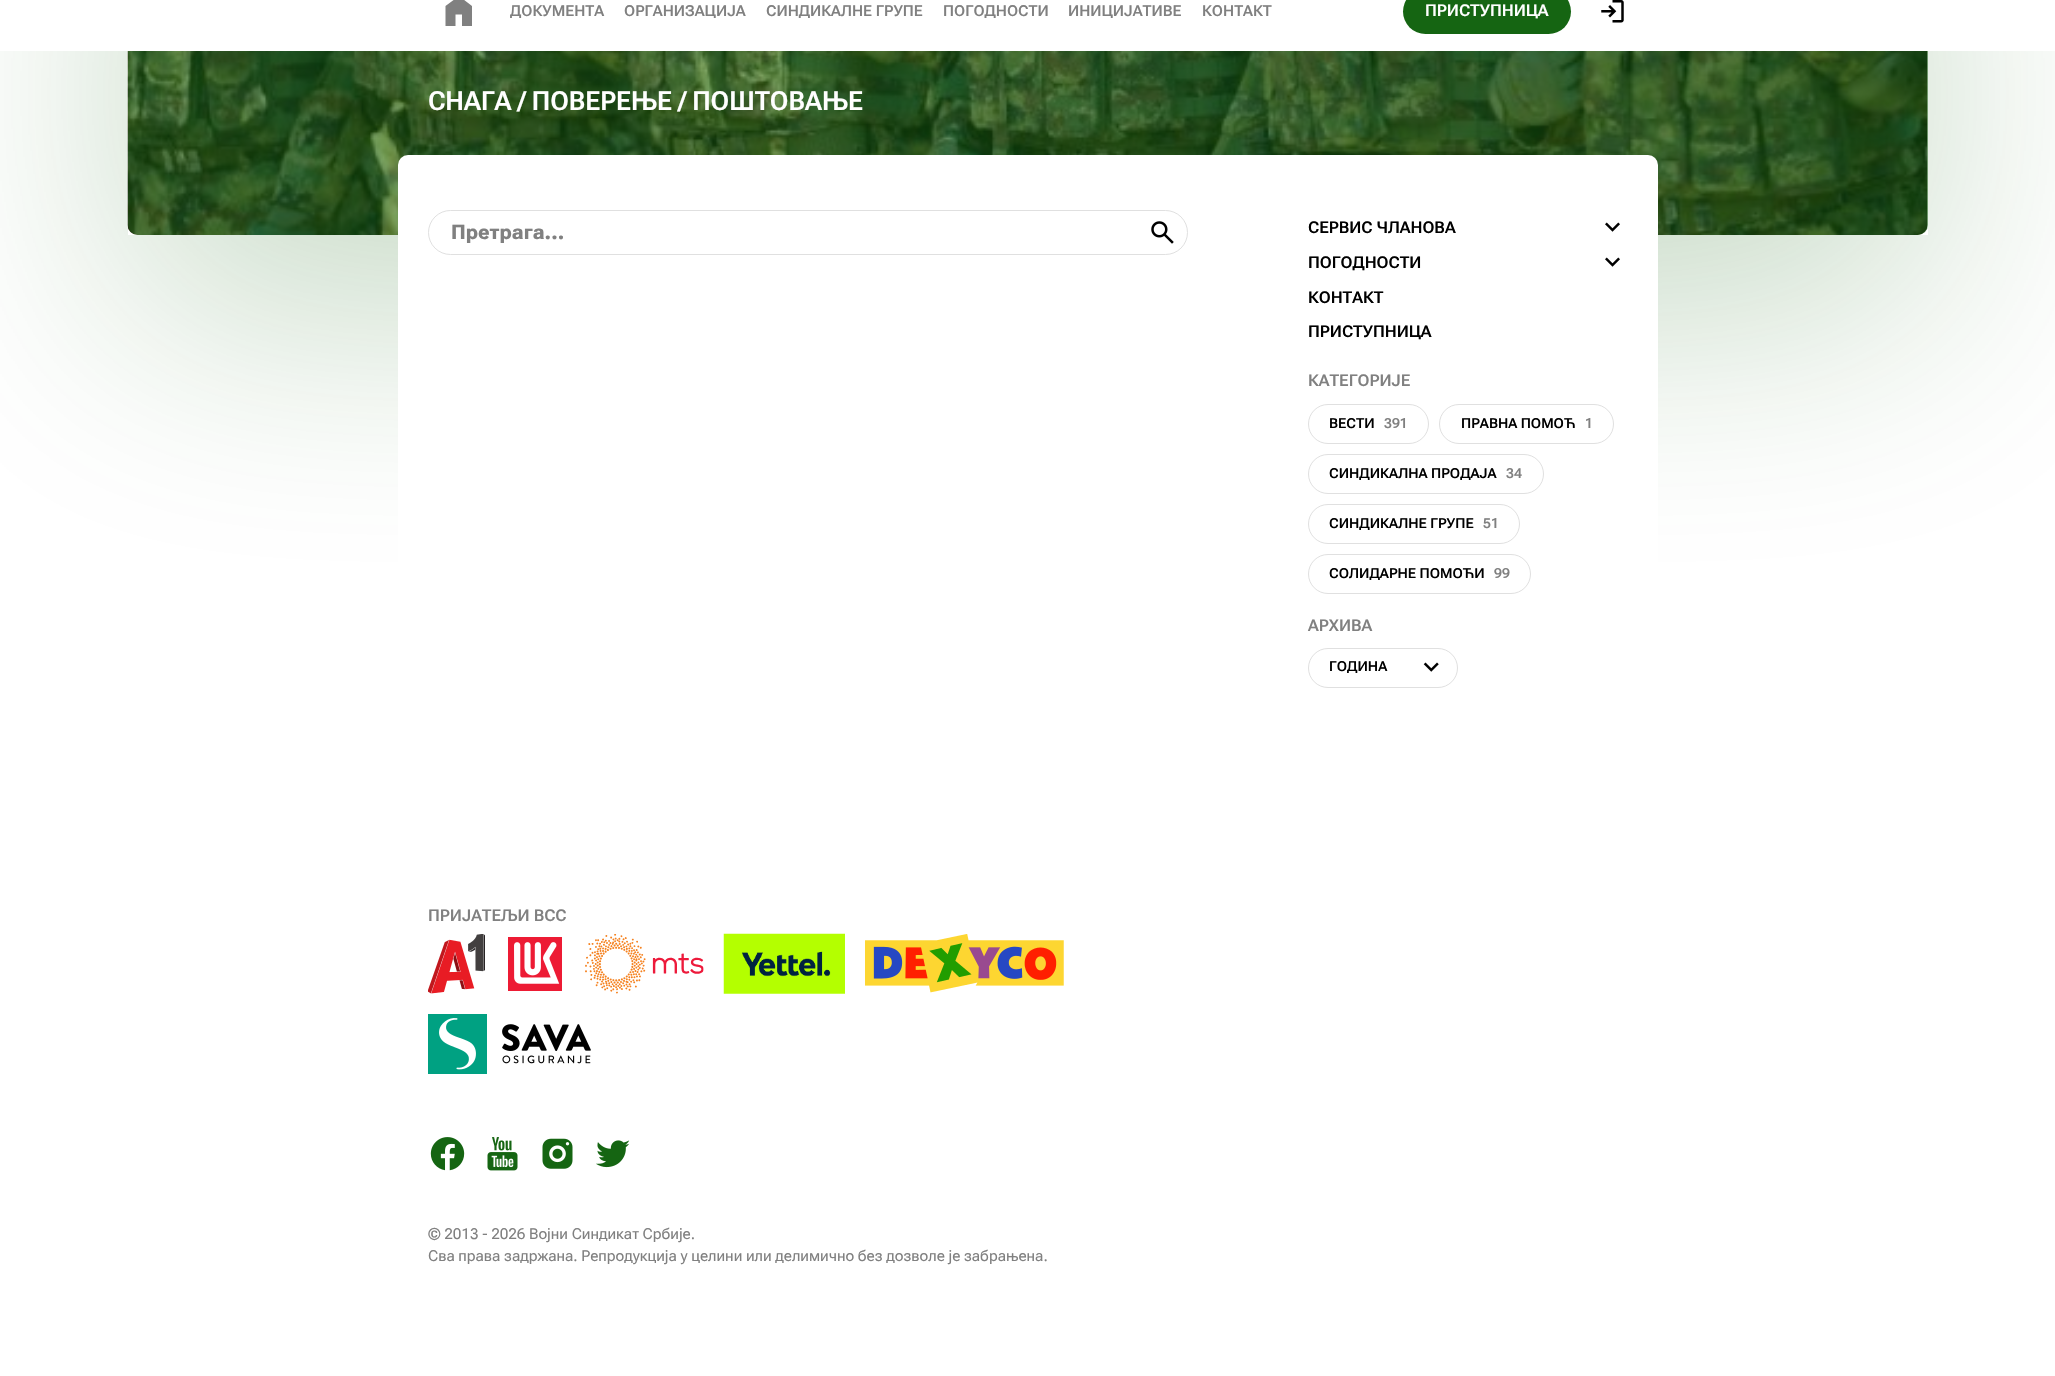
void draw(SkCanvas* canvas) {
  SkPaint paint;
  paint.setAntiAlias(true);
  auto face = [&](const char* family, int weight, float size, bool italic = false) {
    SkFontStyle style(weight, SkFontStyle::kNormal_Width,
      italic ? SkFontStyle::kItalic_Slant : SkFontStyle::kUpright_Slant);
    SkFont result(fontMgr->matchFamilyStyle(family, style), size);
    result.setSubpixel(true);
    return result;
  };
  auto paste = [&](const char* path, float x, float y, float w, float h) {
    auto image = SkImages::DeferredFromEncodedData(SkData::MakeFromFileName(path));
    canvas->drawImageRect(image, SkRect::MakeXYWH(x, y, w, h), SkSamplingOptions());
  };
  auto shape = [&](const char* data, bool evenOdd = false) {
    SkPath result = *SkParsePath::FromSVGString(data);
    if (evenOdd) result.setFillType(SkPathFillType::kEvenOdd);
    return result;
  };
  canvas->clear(0xffffffff);
  paste("img/6.png", 428, 934, 57, 60);
  paste("img/7.png", 508, 937, 54, 54);
  paste("img/8.png", 585, 934, 119, 60);
  paste("img/9.png", 723, 933, 122, 61);
  paste("img/10.png", 865, 934, 199, 59);
  paste("img/11.png", 428, 1014, 163, 60);
  paste("img/12.png", 430, 1137, 35, 34);
  paste("img/13.png", 487, 1137, 31, 34);
  paste("img/14.png", 542, 1138, 31, 31);
  paste("img/15.png", 596, 1140, 34, 28);
  canvas->save();
  canvas->clipPath(shape("M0 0H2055V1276H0ZM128-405H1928V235H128Z", true), true);
  paint.setColor(0x3d156512);
  paint.setMaskFilter(SkMaskFilter::MakeBlur(kNormal_SkBlurStyle, 320));
  canvas->drawRect(SkRect::MakeXYWH(128, -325, 1800, 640), paint);
  paint.setMaskFilter(nullptr);
  canvas->restore();
  paste("img/2.png", 127, 51, 1801, 184);
  paint.setColor(0x80156512);
  canvas->drawRoundRect(SkRect::MakeXYWH(128, -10, 1800, 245), 10, 10, paint);
  paint.setColor(0xffffffff);
  canvas->drawRect(SkRect::MakeXYWH(0, 0, 2055, 51), paint);
  paint.setColor(0xff808080);
  canvas->drawPath(shape("M445.5 26V6L459-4L472 6V26H462V14.5H455.5V26Z"), paint);
  paint.setColor(0xff156512);
  canvas->drawRoundRect(SkRect::MakeXYWH(1403, -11, 168, 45), 22.5f, 22.5f, paint);
  paste("img/1.png", 1601, 0, 23, 23);
  paint.setColor(0xffffffff);
  canvas->drawRect(SkRect::MakeXYWH(398, 758, 1260, 90), paint);
  canvas->drawRoundRect(SkRect::MakeXYWH(398, 155, 1260, 613), 10, 10, paint);
  paint.setStroke(true);
  paint.setStrokeWidth(1);
  paint.setColor(0xffe0e0e0);
  canvas->drawRoundRect(SkRect::MakeXYWH(428.5f, 210.5f, 759, 44), 22, 22, paint);
  paste("img/3.png", 1151, 221, 23, 23);
  paste("img/4.png", 1605, 222, 15, 10);
  paste("img/4.png", 1605, 257, 15, 10);
  canvas->drawRoundRect(SkRect::MakeXYWH(1308.5f, 404.5f, 120, 39), 19.5f, 19.5f, paint);
  canvas->drawRoundRect(SkRect::MakeXYWH(1439.5f, 404.5f, 174, 39), 19.5f, 19.5f, paint);
  canvas->drawRoundRect(SkRect::MakeXYWH(1308.5f, 454.5f, 235, 39), 19.5f, 19.5f, paint);
  canvas->drawRoundRect(SkRect::MakeXYWH(1308.5f, 504.5f, 211, 39), 19.5f, 19.5f, paint);
  canvas->drawRoundRect(SkRect::MakeXYWH(1308.5f, 554.5f, 222, 39), 19.5f, 19.5f, paint);
  canvas->drawRoundRect(SkRect::MakeXYWH(1308.5f, 648.5f, 149, 39), 19.5f, 19.5f, paint);
  paste("img/5.png", 1423, 662, 16, 10);
  auto f0 = face("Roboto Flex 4", 600, 15);
  paint.setStroke(false);
  paint.setColor(0xff808080);
  {
    const struct { const char* s; float x, y; } items[] = {
      {"ДОКУМЕНТА", 510, 16},
      {"ОРГАНИЗАЦИЈА", 624, 16},
      {"СИНДИКАЛНЕ ГРУПЕ", 766, 16},
      {"ПОГОДНОСТИ", 943, 16},
      {"ИНИЦИЈАТИВЕ", 1068, 16},
      {"КОНТАКТ", 1202, 16},
    };
    for (auto [s, x, y] : items) {
      canvas->drawString(s, x, y, f0, paint);
    }
  }
  auto f1 = face("Roboto Flex", 600, 16.25f);
  paint.setColor(0xffffffff);
  canvas->drawString("ПРИСТУПНИЦА", 1425, 16, f1, paint);
  auto f2 = face("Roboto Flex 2", 600, 26.25f);
  canvas->drawString("СНАГА / ПОВЕРЕЊЕ / ПОШТОВАЊЕ", 428, 110, f2, paint);
  auto f3 = face("Roboto Flex", 800, 20);
  paint.setColor(0xff808080);
  canvas->drawString("Претрага...", 451, 239, f3, paint);
  paint.setColor(0xff000000);
  {
    const struct { const char* s; float x, y; } items[] = {
      {"СЕРВИС ЧЛАНОВА", 1308, 233},
      {"ПОГОДНОСТИ", 1308, 268},
      {"КОНТАКТ", 1308, 303},
      {"ПРИСТУПНИЦА", 1308, 337},
    };
    for (auto [s, x, y] : items) {
      canvas->drawString(s, x, y, f1, paint);
    }
  }
  paint.setColor(0xff808080);
  canvas->drawString("КАТЕГОРИЈЕ", 1308, 386, f1, paint);
  auto f4 = face("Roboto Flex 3", 600, 13.75f);
  paint.setColor(0xff000000);
  canvas->drawString("ВЕСТИ", 1329, 428, f4, paint);
  paint.setColor(0xff808080);
  canvas->drawString("391", 1384, 428, f4, paint);
  paint.setColor(0xff000000);
  canvas->drawString("ПРАВНА ПОМОЋ", 1461, 428, f4, paint);
  paint.setColor(0xff808080);
  canvas->drawString("1", 1585, 428, f4, paint);
  paint.setColor(0xff000000);
  canvas->drawString("СИНДИКАЛНА ПРОДАЈА", 1329, 478, f4, paint);
  paint.setColor(0xff808080);
  canvas->drawString("34", 1506, 478, f4, paint);
  paint.setColor(0xff000000);
  canvas->drawString("СИНДИКАЛНЕ ГРУПЕ", 1329, 528, f4, paint);
  paint.setColor(0xff808080);
  canvas->drawString("51", 1483, 528, f4, paint);
  paint.setColor(0xff000000);
  canvas->drawString("СОЛИДАРНЕ ПОМОЋИ", 1329, 578, f4, paint);
  paint.setColor(0xff808080);
  canvas->drawString("99", 1494, 578, f4, paint);
  canvas->drawString("АРХИВА", 1308, 631, f1, paint);
  paint.setColor(0xff000000);
  canvas->drawString("ГОДИНА", 1329, 671, f4, paint);
  paint.setColor(0xff808080);
  canvas->drawString("ПРИЈАТЕЉИ ВСС", 428, 921, f1, paint);
  auto f5 = face("Roboto Flex", 400, 15);
  canvas->drawString("© 2013 - 2026 Војни Синдикат Србије.", 428, 1239, f5, paint);
  canvas->drawString("Сва права задржана. Репродукција у целини или делимично без дозволе је забрањена.", 428, 1261, f5, paint);
}
